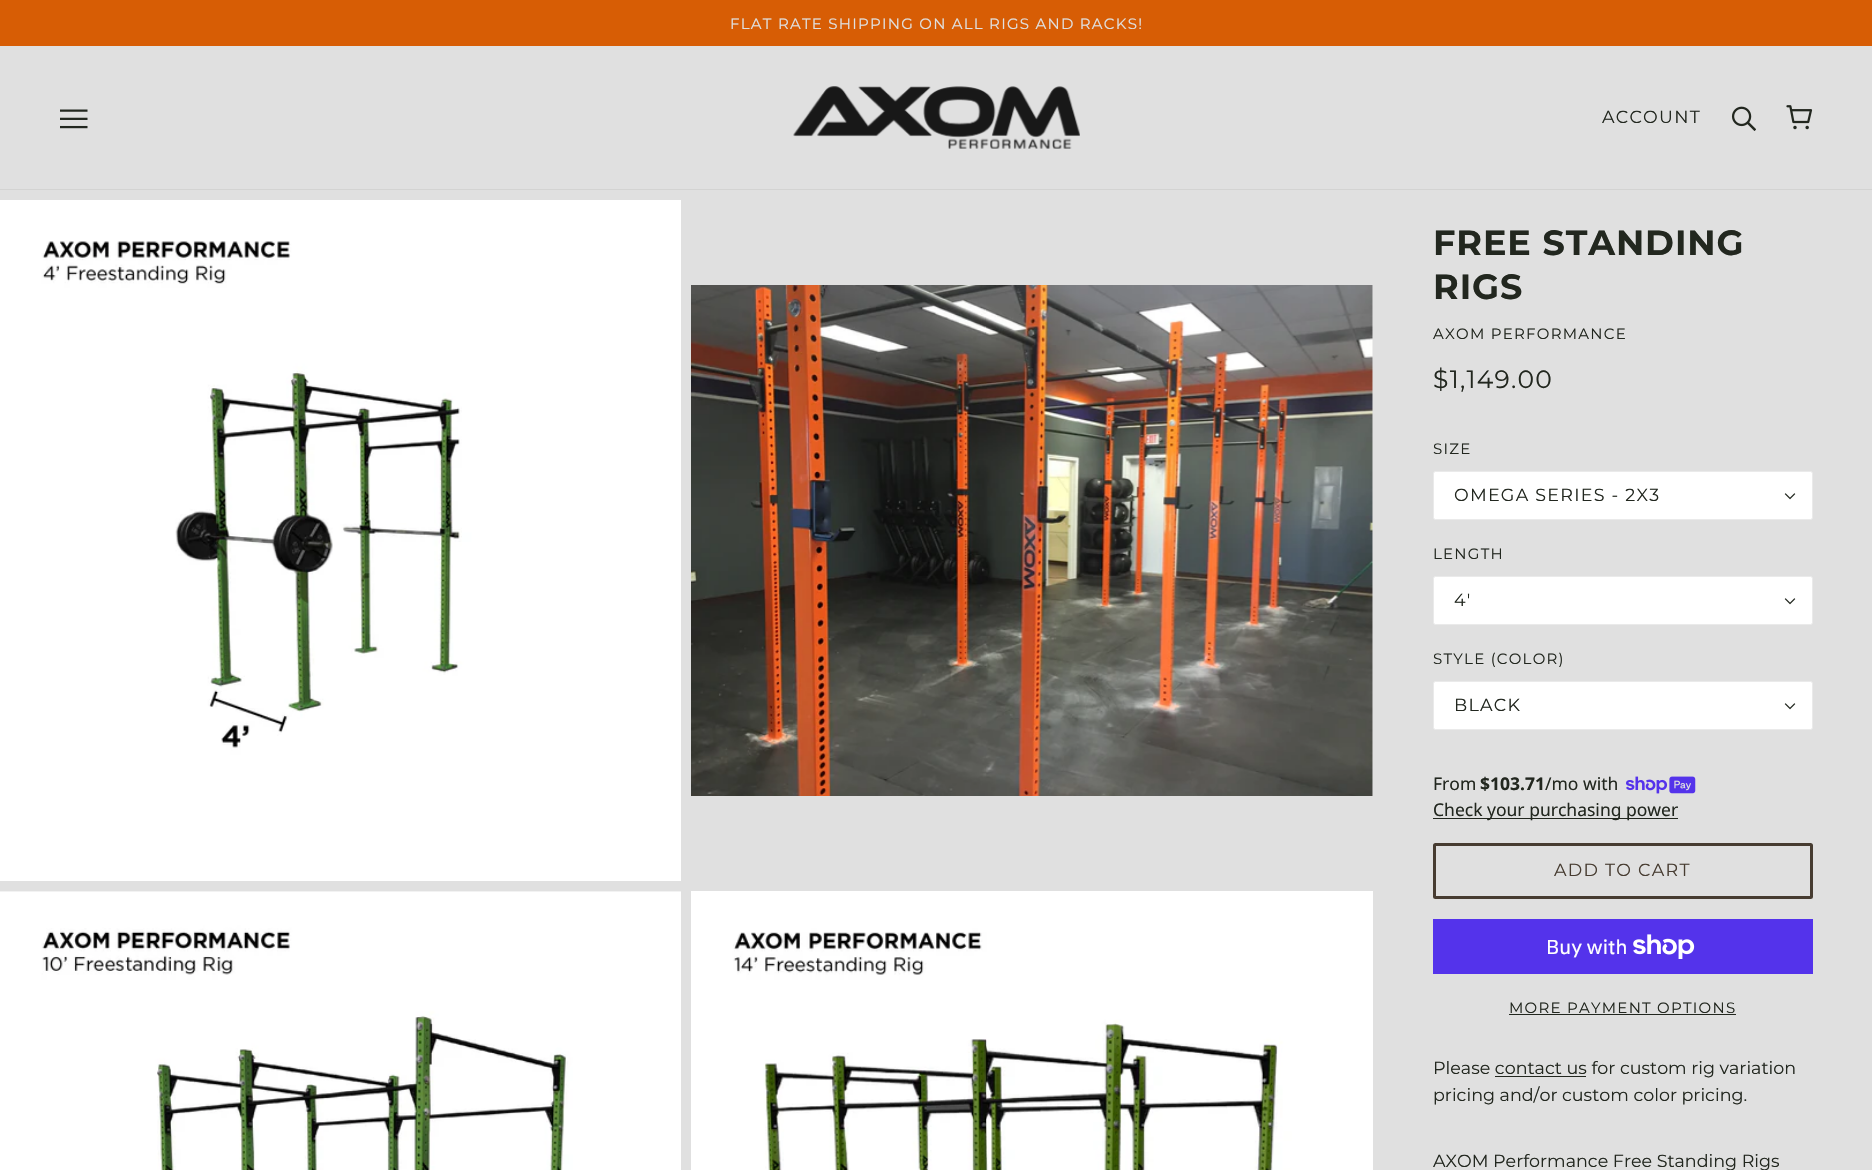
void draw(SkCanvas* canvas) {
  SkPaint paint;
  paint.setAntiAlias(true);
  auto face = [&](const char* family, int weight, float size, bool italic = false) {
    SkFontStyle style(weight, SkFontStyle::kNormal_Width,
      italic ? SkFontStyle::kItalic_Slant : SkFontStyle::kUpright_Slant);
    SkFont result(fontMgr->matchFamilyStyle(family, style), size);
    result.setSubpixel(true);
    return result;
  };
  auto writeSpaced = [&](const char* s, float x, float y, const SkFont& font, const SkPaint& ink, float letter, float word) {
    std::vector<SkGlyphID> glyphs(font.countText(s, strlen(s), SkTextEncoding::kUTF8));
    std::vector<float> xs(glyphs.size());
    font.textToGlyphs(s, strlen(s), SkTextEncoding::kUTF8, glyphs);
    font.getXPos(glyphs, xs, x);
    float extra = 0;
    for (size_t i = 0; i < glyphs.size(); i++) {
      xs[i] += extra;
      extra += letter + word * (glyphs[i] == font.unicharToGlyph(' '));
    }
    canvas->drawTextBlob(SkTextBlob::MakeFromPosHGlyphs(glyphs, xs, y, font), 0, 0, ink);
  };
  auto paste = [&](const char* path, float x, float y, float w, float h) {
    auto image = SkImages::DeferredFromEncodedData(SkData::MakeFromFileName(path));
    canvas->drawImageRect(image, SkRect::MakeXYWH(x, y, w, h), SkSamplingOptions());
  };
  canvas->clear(0xffe0e0e0);
  paint.setColor(0xffd75d05);
  canvas->drawRect(SkRect::MakeXYWH(0, 0, 1872, 46), paint);
  paint.setColor(0xffd3d3d2);
  canvas->drawRect(SkRect::MakeXYWH(0, 189, 1872, 1), paint);
  paste("img/1.png", 60, 109, 28, 20);
  paste("img/2.png", 793, 86, 287, 63);
  paste("img/3.png", 1731, 106, 25, 25);
  paste("img/4.png", 1786, 105, 27, 25);
  paste("img/5.png", 0, 200, 681, 681);
  paste("img/6.png", 691, 285, 682, 511);
  paste("img/7.png", 0, 891, 681, 279);
  paste("img/8.png", 691, 891, 682, 279);
  paint.setColor(0xffffffff);
  canvas->drawRoundRect(SkRect::MakeXYWH(1433.5f, 471.5f, 379, 48), 2, 2, paint);
  paint.setStroke(true);
  paint.setStrokeWidth(1);
  paint.setColor(0xffeaeaea);
  canvas->drawRoundRect(SkRect::MakeXYWH(1433.5f, 471.5f, 379, 48), 2, 2, paint);
  paste("img/9.png", 1784, 493, 12, 7);
  paint.setStroke(false);
  paint.setColor(0xffffffff);
  canvas->drawRoundRect(SkRect::MakeXYWH(1433.5f, 576.5f, 379, 48), 2, 2, paint);
  paint.setStroke(true);
  paint.setColor(0xffeaeaea);
  canvas->drawRoundRect(SkRect::MakeXYWH(1433.5f, 576.5f, 379, 48), 2, 2, paint);
  paste("img/9.png", 1784, 598, 12, 7);
  paint.setStroke(false);
  paint.setColor(0xffffffff);
  canvas->drawRoundRect(SkRect::MakeXYWH(1433.5f, 681.5f, 379, 48), 2, 2, paint);
  paint.setStroke(true);
  paint.setColor(0xffeaeaea);
  canvas->drawRoundRect(SkRect::MakeXYWH(1433.5f, 681.5f, 379, 48), 2, 2, paint);
  paste("img/9.png", 1784, 703, 12, 7);
  paste("img/10.png", 1626, 776, 70, 18);
  paint.setStroke(false);
  paint.setColor(0xff22271f);
  canvas->drawRect(SkRect::MakeXYWH(1433, 818, 245, 1), paint);
  paint.setStroke(true);
  paint.setStrokeWidth(3);
  paint.setColor(0xff473c31);
  canvas->drawRoundRect(SkRect::MakeXYWH(1434.5f, 844.5f, 377, 53), 1, 1, paint);
  paint.setStroke(false);
  paint.setColor(0xff5433eb);
  canvas->drawRect(SkRect::MakeXYWH(1433, 919, 380, 55), paint);
  paste("img/11.png", 1633, 934, 62, 25);
  paint.setColor(0xff22271f);
  canvas->drawRect(SkRect::MakeXYWH(1509, 1014, 227, 1), paint);
  canvas->drawRect(SkRect::MakeXYWH(1495, 1076, 91, 1), paint);
  auto f0 = face("Montserrat", 400, 15);
  paint.setColor(0xffe0e0e0);
  writeSpaced("FLAT RATE SHIPPING ON ALL RIGS AND RACKS!", 730, 29, f0, paint, 1.25f, 0);
  auto f1 = face("Montserrat", 400, 17.5f);
  paint.setColor(0xff22271f);
  writeSpaced("ACCOUNT", 1602, 123, f1, paint, 1.25f, 0);
  auto f2 = face("Montserrat", 700, 35);
  writeSpaced("FREE STANDING", 1433, 255, f2, paint, 0.9f, 0);
  writeSpaced("RIGS", 1433, 299, f2, paint, 0.9f, 0);
  writeSpaced("AXOM PERFORMANCE", 1433, 339, f0, paint, 1.25f, 0);
  auto f3 = face("Montserrat", 400, 25);
  writeSpaced("$1,149.00", 1433, 388, f3, paint, 1.25f, 0);
  writeSpaced("SIZE", 1433, 454, f0, paint, 1.25f, 0);
  writeSpaced("OMEGA SERIES - 2X3", 1454, 501, f1, paint, 1.25f, 0);
  writeSpaced("LENGTH", 1433, 559, f0, paint, 1.25f, 0);
  writeSpaced("4'", 1454, 606, f1, paint, 1.25f, 0);
  writeSpaced("STYLE (COLOR)", 1433, 664, f0, paint, 1.25f, 0);
  writeSpaced("BLACK", 1454, 711, f1, paint, 1.25f, 0);
  auto f4 = face("Noto Sans", 400, 17.5f);
  canvas->drawString("From", 1433, 790, f4, paint);
  auto f5 = face("Noto Sans", 700, 17.5f);
  canvas->drawString("$103.71", 1480, 790, f5, paint);
  canvas->drawString("/mo with", 1545, 790, f4, paint);
  canvas->drawString("Check your purchasing power", 1433, 816, f4, paint);
  paint.setColor(0xff473c31);
  writeSpaced("ADD TO CART", 1554, 876, f1, paint, 1.25f, 0);
  auto f6 = face("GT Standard", 400, 20);
  paint.setColor(0xffffffff);
  canvas->drawString("Buy with", 1546, 954, f6, paint);
  paint.setColor(0xff22271f);
  writeSpaced("MORE PAYMENT OPTIONS", 1509, 1013, f0, paint, 1.25f, 0);
  {
    const struct { const char* s; float x, y; } items[] = {
      {"Please contact us for custom rig variation", 1433, 1074},
      {"pricing and/or custom color pricing.", 1433, 1101},
      {"AXOM Performance Free Standing Rigs", 1433, 1167},
    };
    for (auto [s, x, y] : items) {
      canvas->drawString(s, x, y, f1, paint);
    }
  }
}
